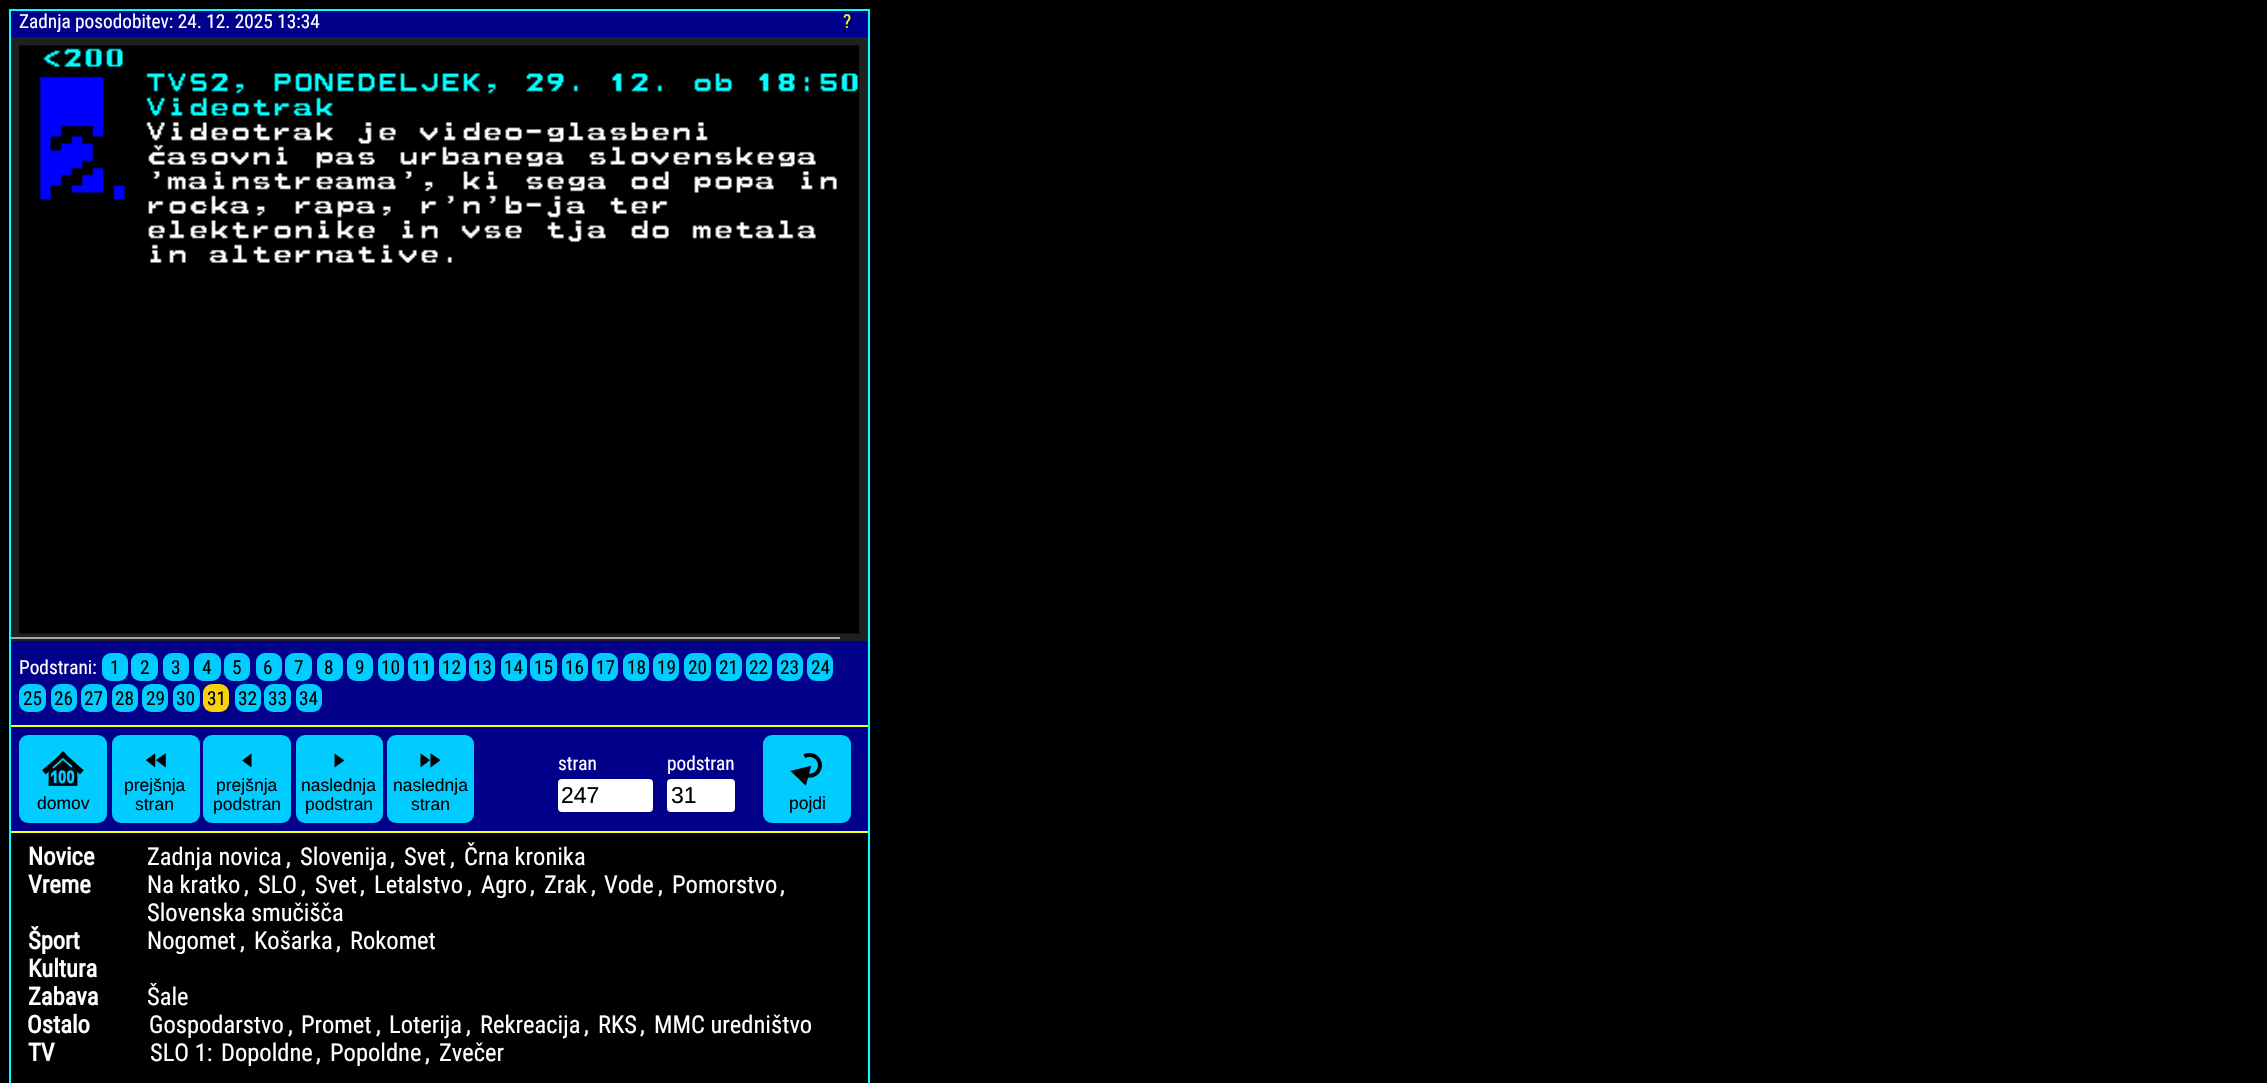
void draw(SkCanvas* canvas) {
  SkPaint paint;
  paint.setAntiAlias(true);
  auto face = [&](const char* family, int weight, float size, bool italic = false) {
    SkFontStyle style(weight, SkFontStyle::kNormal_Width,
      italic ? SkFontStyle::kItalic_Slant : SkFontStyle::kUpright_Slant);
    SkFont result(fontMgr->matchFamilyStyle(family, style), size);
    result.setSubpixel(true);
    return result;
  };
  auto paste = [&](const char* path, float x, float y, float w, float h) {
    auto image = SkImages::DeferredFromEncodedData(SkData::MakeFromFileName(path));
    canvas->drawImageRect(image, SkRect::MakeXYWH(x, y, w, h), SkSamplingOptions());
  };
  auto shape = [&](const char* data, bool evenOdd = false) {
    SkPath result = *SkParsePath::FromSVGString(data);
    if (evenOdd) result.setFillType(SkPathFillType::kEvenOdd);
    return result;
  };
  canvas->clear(0xff000000);
  paint.setStroke(true);
  paint.setStrokeWidth(2);
  paint.setColor(0xff00ffff);
  canvas->drawRect(SkRect::MakeXYWH(10, 10, 859, 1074), paint);
  paint.setStroke(false);
  paint.setColor(0xff00008b);
  canvas->drawRect(SkRect::MakeXYWH(11, 11, 857, 26), paint);
  paint.setColor(0xff202020);
  canvas->drawRect(SkRect::MakeXYWH(11, 37, 857, 604), paint);
  paste("img/1.png", 19, 45, 841, 589);
  {
    const struct { float x, y, w, h; SkColor color; } items[] = {
      {11, 641, 857, 84, 0xff00008b},
      {11, 725, 857, 2, 0xffffff00},
      {11, 637, 829, 2, 0xffa7a7a7},
    };
    for (auto [x, y, w, h, color] : items) {
      paint.setColor(color);
      canvas->drawRect(SkRect::MakeXYWH(x, y, w, h), paint);
    }
  }
  paint.setColor(0xff00ccff);
  canvas->drawRoundRect(SkRect::MakeXYWH(102, 653, 26, 28), 9, 9, paint);
  canvas->drawRoundRect(SkRect::MakeXYWH(131, 653, 27, 28), 9, 9, paint);
  canvas->drawRoundRect(SkRect::MakeXYWH(163, 653, 26, 28), 9, 9, paint);
  canvas->drawRoundRect(SkRect::MakeXYWH(194, 653, 27, 28), 9, 9, paint);
  canvas->drawRoundRect(SkRect::MakeXYWH(224, 653, 26, 28), 9, 9, paint);
  canvas->drawRoundRect(SkRect::MakeXYWH(256, 653, 26, 28), 9, 9, paint);
  canvas->drawRoundRect(SkRect::MakeXYWH(285, 653, 27, 28), 9, 9, paint);
  canvas->drawRoundRect(SkRect::MakeXYWH(317, 653, 26, 28), 9, 9, paint);
  canvas->drawRoundRect(SkRect::MakeXYWH(347, 653, 26, 28), 9, 9, paint);
  canvas->drawRoundRect(SkRect::MakeXYWH(378, 653, 26, 28), 9, 9, paint);
  canvas->drawRoundRect(SkRect::MakeXYWH(408, 653, 26, 28), 9, 9, paint);
  canvas->drawRoundRect(SkRect::MakeXYWH(439, 653, 27, 28), 9, 9, paint);
  canvas->drawRoundRect(SkRect::MakeXYWH(469, 653, 26, 28), 9, 9, paint);
  canvas->drawRoundRect(SkRect::MakeXYWH(501, 653, 26, 28), 9, 9, paint);
  canvas->drawRoundRect(SkRect::MakeXYWH(530, 653, 27, 28), 9, 9, paint);
  canvas->drawRoundRect(SkRect::MakeXYWH(562, 653, 26, 28), 9, 9, paint);
  canvas->drawRoundRect(SkRect::MakeXYWH(592, 653, 26, 28), 9, 9, paint);
  canvas->drawRoundRect(SkRect::MakeXYWH(623, 653, 26, 28), 9, 9, paint);
  canvas->drawRoundRect(SkRect::MakeXYWH(653, 653, 26, 28), 9, 9, paint);
  canvas->drawRoundRect(SkRect::MakeXYWH(684, 653, 27, 28), 9, 9, paint);
  canvas->drawRoundRect(SkRect::MakeXYWH(716, 653, 26, 28), 9, 9, paint);
  canvas->drawRoundRect(SkRect::MakeXYWH(746, 653, 26, 28), 9, 9, paint);
  canvas->drawRoundRect(SkRect::MakeXYWH(777, 653, 26, 28), 9, 9, paint);
  canvas->drawRoundRect(SkRect::MakeXYWH(807, 653, 26, 28), 9, 9, paint);
  canvas->drawRoundRect(SkRect::MakeXYWH(19, 684, 27, 28), 9, 9, paint);
  canvas->drawRoundRect(SkRect::MakeXYWH(51, 684, 26, 28), 9, 9, paint);
  canvas->drawRoundRect(SkRect::MakeXYWH(81, 684, 26, 28), 9, 9, paint);
  canvas->drawRoundRect(SkRect::MakeXYWH(112, 684, 26, 28), 9, 9, paint);
  canvas->drawRoundRect(SkRect::MakeXYWH(142, 684, 26, 28), 9, 9, paint);
  canvas->drawRoundRect(SkRect::MakeXYWH(173, 684, 27, 28), 9, 9, paint);
  paint.setColor(0xfff7d209);
  canvas->drawRoundRect(SkRect::MakeXYWH(203, 684, 26, 28), 9, 9, paint);
  paint.setColor(0xff00ccff);
  canvas->drawRoundRect(SkRect::MakeXYWH(235, 684, 26, 28), 9, 9, paint);
  canvas->drawRoundRect(SkRect::MakeXYWH(264, 684, 27, 28), 9, 9, paint);
  canvas->drawRoundRect(SkRect::MakeXYWH(296, 684, 26, 28), 9, 9, paint);
  paint.setColor(0xff00008b);
  canvas->drawRect(SkRect::MakeXYWH(11, 727, 857, 104), paint);
  paint.setColor(0xffffff00);
  canvas->drawRect(SkRect::MakeXYWH(11, 831, 857, 2), paint);
  paint.setColor(0xff00ccff);
  canvas->drawRoundRect(SkRect::MakeXYWH(19, 735, 88, 88), 9, 9, paint);
  paste("img/2.png", 42, 751, 42, 35);
  canvas->drawRoundRect(SkRect::MakeXYWH(112, 735, 88, 88), 9, 9, paint);
  paste("img/3.png", 145, 753, 21, 15);
  canvas->drawRoundRect(SkRect::MakeXYWH(203, 735, 88, 88), 9, 9, paint);
  paint.setColor(0xff000000);
  canvas->drawPath(shape("M251.5 753.5L242 760.5L251.5 767.5Z", true), paint);
  paint.setColor(0xff00ccff);
  canvas->drawRoundRect(SkRect::MakeXYWH(296, 735, 87, 88), 9, 9, paint);
  paint.setColor(0xff000000);
  canvas->drawPath(shape("M334.5 753.5L344.5 760.5L334.5 767.5Z", true), paint);
  paint.setColor(0xff00ccff);
  canvas->drawRoundRect(SkRect::MakeXYWH(387, 735, 87, 88), 9, 9, paint);
  paste("img/4.png", 420, 753, 21, 15);
  paint.setColor(0xffffffff);
  canvas->drawRoundRect(SkRect::MakeXYWH(558, 779, 95, 33), 4, 4, paint);
  canvas->drawRoundRect(SkRect::MakeXYWH(667, 779, 68, 33), 4, 4, paint);
  paint.setColor(0xff00ccff);
  canvas->drawRoundRect(SkRect::MakeXYWH(763, 735, 88, 88), 9, 9, paint);
  paste("img/5.png", 790, 753, 32, 33);
  auto f0 = face("Roboto Condensed", 400, 19.25f);
  paint.setColor(0xffffffff);
  canvas->drawString("Zadnja posodobitev: 24. 12. 2025 13:34", 19, 28, f0, paint);
  paint.setColor(0xffffff00);
  canvas->drawString("?", 843, 28, f0, paint);
  paint.setColor(0xffffffff);
  canvas->drawString("Podstrani:", 19, 674, f0, paint);
  paint.setColor(0xff000000);
  {
    const struct { const char* s; float x, y; } items[] = {
      {"1", 110, 674},
      {"2", 140, 674},
      {"3", 171, 674},
      {"4", 202, 674},
      {"5", 232, 674},
      {"6", 263, 674},
      {"7", 294, 674},
      {"8", 324, 674},
      {"9", 355, 674},
      {"10", 381, 674},
      {"11", 412, 674},
      {"12", 442, 674},
      {"13", 473, 674},
      {"14", 504, 674},
      {"15", 534, 674},
      {"16", 565, 674},
      {"17", 596, 674},
      {"18", 627, 674},
      {"19", 657, 674},
      {"20", 688, 674},
      {"21", 719, 674},
      {"22", 749, 674},
      {"23", 780, 674},
      {"24", 811, 674},
      {"25", 23, 705},
      {"26", 54, 705},
      {"27", 84, 705},
      {"28", 115, 705},
      {"29", 146, 705},
      {"30", 176, 705},
      {"31", 207, 705},
      {"32", 238, 705},
      {"33", 268, 705},
      {"34", 299, 705},
    };
    for (auto [s, x, y] : items) {
      canvas->drawString(s, x, y, f0, paint);
    }
  }
  auto f1 = face("Liberation Sans", 400, 17.5f);
  {
    const struct { const char* s; float x, y; } items[] = {
      {"domov", 37, 809},
      {"prejšnja", 124, 791},
      {"stran", 135, 810},
      {"prejšnja", 216, 791},
      {"podstran", 213, 810},
      {"naslednja", 301, 791},
      {"podstran", 305, 810},
      {"naslednja", 393, 791},
      {"stran", 411, 810},
    };
    for (auto [s, x, y] : items) {
      canvas->drawString(s, x, y, f1, paint);
    }
  }
  paint.setColor(0xffffffff);
  canvas->drawString("stran", 558, 770, f0, paint);
  auto f2 = face("Liberation Sans", 400, 23);
  paint.setColor(0xff000000);
  canvas->drawString("247", 561, 803, f2, paint);
  paint.setColor(0xffffffff);
  canvas->drawString("podstran", 667, 770, f0, paint);
  paint.setColor(0xff000000);
  canvas->drawString("31", 671, 803, f2, paint);
  canvas->drawString("pojdi", 789, 809, f1, paint);
  auto f3 = face("Roboto Condensed", 700, 24.5f);
  paint.setColor(0xffffffff);
  canvas->drawString("Novice", 28, 865, f3, paint);
  auto f4 = face("Roboto Condensed", 400, 24.5f);
  {
    const struct { const char* s; float x, y; } items[] = {
      {"Zadnja novica", 147, 865},
      {",", 286, 865},
      {"Slovenija", 300, 865},
      {",", 390, 865},
      {"Svet", 404, 865},
      {",", 450, 865},
      {"Črna kronika", 464, 865},
    };
    for (auto [s, x, y] : items) {
      canvas->drawString(s, x, y, f4, paint);
    }
  }
  canvas->drawString("Vreme", 28, 893, f3, paint);
  {
    const struct { const char* s; float x, y; } items[] = {
      {"Na kratko", 147, 893},
      {",", 244, 893},
      {"SLO", 258, 893},
      {",", 301, 893},
      {"Svet", 315, 893},
      {",", 360, 893},
      {"Letalstvo", 374, 893},
      {",", 467, 893},
      {"Agro", 481, 893},
      {",", 530, 893},
      {"Zrak", 544, 893},
      {",", 591, 893},
      {"Vode", 604, 893},
      {",", 658, 893},
      {"Pomorstvo", 672, 893},
      {",", 780, 893},
      {"Slovenska smučišča", 147, 921},
    };
    for (auto [s, x, y] : items) {
      canvas->drawString(s, x, y, f4, paint);
    }
  }
  canvas->drawString("Šport", 28, 949, f3, paint);
  {
    const struct { const char* s; float x, y; } items[] = {
      {"Nogomet", 147, 949},
      {",", 240, 949},
      {"Košarka", 254, 949},
      {",", 336, 949},
      {"Rokomet", 350, 949},
    };
    for (auto [s, x, y] : items) {
      canvas->drawString(s, x, y, f4, paint);
    }
  }
  canvas->drawString("Kultura", 28, 977, f3, paint);
  canvas->drawString("Zabava", 28, 1005, f3, paint);
  canvas->drawString("Šale", 147, 1005, f4, paint);
  canvas->drawString("Ostalo", 27, 1033, f3, paint);
  {
    const struct { const char* s; float x, y; } items[] = {
      {"Gospodarstvo", 149, 1033},
      {",", 288, 1033},
      {"Promet", 301, 1033},
      {",", 376, 1033},
      {"Loterija", 389, 1033},
      {",", 466, 1033},
      {"Rekreacija", 480, 1033},
      {",", 584, 1033},
      {"RKS", 598, 1033},
      {",", 640, 1033},
      {"MMC uredništvo", 654, 1033},
    };
    for (auto [s, x, y] : items) {
      canvas->drawString(s, x, y, f4, paint);
    }
  }
  canvas->drawString("TV", 28, 1061, f3, paint);
  {
    const struct { const char* s; float x, y; } items[] = {
      {"SLO 1:", 150, 1061},
      {"Dopoldne", 221, 1061},
      {",", 316, 1061},
      {"Popoldne", 330, 1061},
      {",", 425, 1061},
      {"Zvečer", 439, 1061},
    };
    for (auto [s, x, y] : items) {
      canvas->drawString(s, x, y, f4, paint);
    }
  }
}
